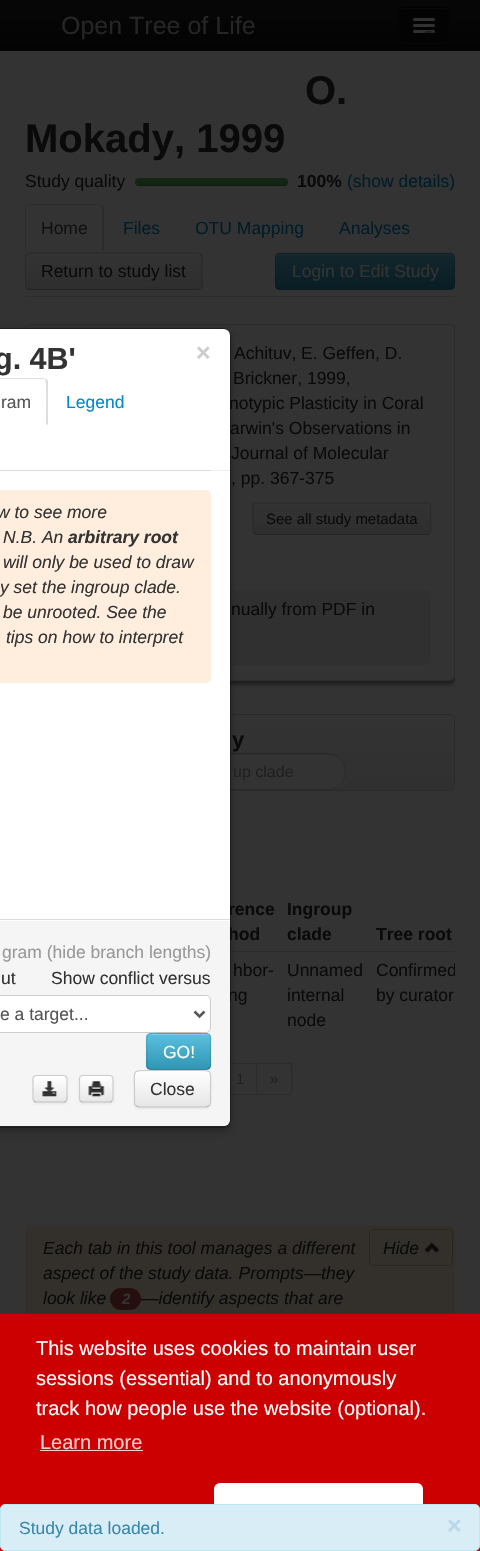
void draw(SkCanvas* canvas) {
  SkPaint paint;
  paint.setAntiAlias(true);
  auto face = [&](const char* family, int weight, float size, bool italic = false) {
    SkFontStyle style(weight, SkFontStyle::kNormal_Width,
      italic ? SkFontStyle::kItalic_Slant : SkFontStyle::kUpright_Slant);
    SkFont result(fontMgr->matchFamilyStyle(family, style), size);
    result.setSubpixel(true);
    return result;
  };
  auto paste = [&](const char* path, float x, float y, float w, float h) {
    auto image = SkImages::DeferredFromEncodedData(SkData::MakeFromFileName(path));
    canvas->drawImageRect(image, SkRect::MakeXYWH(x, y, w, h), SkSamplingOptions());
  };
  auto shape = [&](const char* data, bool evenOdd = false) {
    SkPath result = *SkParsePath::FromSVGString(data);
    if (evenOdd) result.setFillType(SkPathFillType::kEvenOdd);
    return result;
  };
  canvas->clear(0xff333333);
  {
    const SkColor colors[] = {0xff070707, 0xff030303};
    const float stops[] = {0, 1};
    const SkPoint ends[] = {{240, 0}, {240, 50}};
    paint.setShader(SkGradientShader::MakeLinear(ends, colors, stops, 2, SkTileMode::kClamp));
    paint.setAlpha(255);
  }
  canvas->drawRect(SkRect::MakeXYWH(0, 0, 480, 50), paint);
  paint.setShader(nullptr);
  paint.setColor(0xff070707);
  canvas->drawRect(SkRect::MakeXYWH(0, 50, 480, 1), paint);
  canvas->drawPath(shape("M399 39V41C400 42 401 44 403 44H445L448 43C450 40 449 30 449 26V11V38C449 40 447 42 444 42H404C402 42 400 41 399 39Z"), paint);
  paint.setColor(0xff030303);
  canvas->drawRoundRect(SkRect::MakeXYWH(399, 6, 50, 37), 5, 5, paint);
  paint.setColor(0xff090909);
  canvas->drawPath(shape("M404 9H444C446 9 448 10 448 12C448 10 446 8 444 8H404C402 8 400 10 400 12C400 10 402 9 404 9Z"), paint);
  paint.setColor(0xff313131);
  canvas->drawRoundRect(SkRect::MakeXYWH(413, 18, 22, 3), 1.5f, 1.5f, paint);
  canvas->drawRoundRect(SkRect::MakeXYWH(413, 24, 22, 3), 1.5f, 1.5f, paint);
  canvas->drawRoundRect(SkRect::MakeXYWH(413, 30, 22, 3), 1.5f, 1.5f, paint);
  paste("img/1.png", 423, 31, 11, 2);
  {
    const SkColor colors[] = {0xff142714, 0xff112211};
    const float stops[] = {0, 1};
    const SkPoint ends[] = {{211, 178}, {211, 186}};
    paint.setShader(SkGradientShader::MakeLinear(ends, colors, stops, 2, SkTileMode::kClamp));
    paint.setAlpha(255);
  }
  canvas->drawRoundRect(SkRect::MakeXYWH(135, 178, 153, 8), 4, 4, paint);
  canvas->save();
  canvas->clipPath(shape("M139 178H284C286 178 288 180 288 182C288 184 286 186 284 186H139C137 186 135 184 135 182C135 180 137 178 139 178Z"), true);
  paint.setShader(nullptr);
  paint.setColor(0x26000000);
  canvas->drawRect(SkRect::MakeXYWH(135, 185, 153, 1), paint);
  canvas->restore();
  paint.setColor(0xff2c2c2c);
  canvas->drawRect(SkRect::MakeXYWH(25, 296, 430, 1), paint);
  canvas->drawPath(shape("M30 204C29 204 27 204 27 205V206C28 205 29 205 30 205H99C100 205 101 206 101 206L102 205L99 204Z"), paint);
  canvas->drawPath(shape("M102 205L104 207V251L102 250V209L101 206Z"), paint);
  canvas->drawPath(shape("M25 209V251L26 250V209C26 208 27 207 27 206V205C26 206 25 207 25 209Z"), paint);
  canvas->save();
  canvas->clipPath(shape("M30 253H198C201 253 203 255 203 258V285C203 288 201 290 198 290H30C27 290 25 288 25 285V258C25 255 27 253 30 253Z"), true);
  {
    const SkColor colors[] = {0xff333333, 0xff2e2e2e};
    const float stops[] = {0, 1};
    const SkPoint ends[] = {{114, 254}, {114, 289}};
    paint.setShader(SkGradientShader::MakeLinear(ends, colors, stops, 2, SkTileMode::kClamp));
    paint.setAlpha(255);
  }
  canvas->drawRect(SkRect::MakeXYWH(25, 254, 178, 35), paint);
  canvas->restore();
  paint.setStroke(true);
  paint.setStrokeWidth(1.2f);
  paint.setShader(nullptr);
  paint.setColor(0xff242424);
  canvas->drawPath(shape("M200.5 288C200 289 198.5 289.5 197.5 289.5H30C29 289.5 27.5 289 27 288"), paint);
  paint.setColor(0xff292929);
  canvas->drawPath(shape("M27 288C26 287.5 25.5 286 25.5 285V257.5C25.5 256.5 26 255 27 254.5C27.5 253.5 29 253 30 253H197.5C198.5 253 200 253.5 200.5 254.5C201.5 255 202 256.5 202 257.5V285C202 286 201.5 287.5 200.5 288"), paint);
  paint.setStroke(false);
  paint.setColor(0xff0f2329);
  canvas->drawRoundRect(SkRect::MakeXYWH(275, 253, 180, 37), 5, 5, paint);
  canvas->save();
  canvas->clipPath(shape("M280 253H450C453 253 455 255 455 258V285C455 288 453 290 450 290H280C277 290 275 288 275 285V258C275 255 277 253 280 253Z"), true);
  {
    const SkColor colors[] = {0xff12262c, 0xff091e24};
    const float stops[] = {0, 1};
    const SkPoint ends[] = {{365, 254}, {365, 289}};
    paint.setShader(SkGradientShader::MakeLinear(ends, colors, stops, 2, SkTileMode::kClamp));
    paint.setAlpha(255);
  }
  canvas->drawRect(SkRect::MakeXYWH(275, 254, 180, 35), paint);
  canvas->restore();
  paint.setShader(nullptr);
  paint.setColor(0xff19292e);
  canvas->drawPath(shape("M280 255H450C452 255 454 257 454 259V258C454 256 452 254 450 254H280C278 254 276 256 276 258V259C276 257 278 255 280 255Z"), paint);
  paint.setStroke(true);
  paint.setColor(0x40000000);
  canvas->drawPath(shape("M453 288C452.5 289 451 289.5 450 289.5H280C279 289.5 277.5 289 277 288"), paint);
  paint.setColor(0x1a000000);
  canvas->drawPath(shape("M277 288C276 287.5 275.5 286 275.5 285V257.5C275.5 256.5 276 255 277 254.5C277.5 253.5 279 253 280 253H450C451 253 452.5 253.5 453 254.5C454 255 454.5 256.5 454.5 257.5V285C454.5 286 454 287.5 453 288"), paint);
  canvas->save();
  canvas->clipRect(SkRect::MakeXYWH(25, 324, 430, 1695));
  canvas->clipPath(shape("M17 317H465V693H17ZM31 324H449C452.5 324 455 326.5 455 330V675C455 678.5 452.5 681 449 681H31C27.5 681 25 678.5 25 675V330C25 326.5 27.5 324 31 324Z", true), true);
  paint.setStroke(false);
  paint.setColor(0x80000000);
  paint.setMaskFilter(SkMaskFilter::MakeBlur(kNormal_SkBlurStyle, 2.5f));
  canvas->drawRoundRect(SkRect::MakeXYWH(26, 326, 430, 358), 6, 6, paint);
  paint.setMaskFilter(nullptr);
  canvas->restore();
  paint.setStroke(true);
  paint.setStrokeWidth(1);
  paint.setColor(0xff2c2c2c);
  canvas->drawRoundRect(SkRect::MakeXYWH(25.5f, 324.5f, 429, 356), 5.5f, 5.5f, paint);
  paint.setStroke(false);
  paint.setColor(0xff303030);
  canvas->drawRoundRect(SkRect::MakeXYWH(49, 590, 382, 75), 5, 5, paint);
  canvas->save();
  canvas->clipPath(shape("M30 714H450C453 714 455 716 455 719V786C455 789 453 791 450 791H30C27 791 25 789 25 786V719C25 716 27 714 30 714Z"), true);
  {
    const SkColor colors[] = {0xff333333, 0xff303030};
    const float stops[] = {0, 1};
    const SkPoint ends[] = {{240, 715}, {240, 790}};
    paint.setShader(SkGradientShader::MakeLinear(ends, colors, stops, 2, SkTileMode::kClamp));
    paint.setAlpha(255);
  }
  canvas->drawRect(SkRect::MakeXYWH(230, 715, 225, 75), paint);
  canvas->restore();
  paint.setStroke(true);
  paint.setShader(nullptr);
  paint.setColor(0xff2a2a2a);
  canvas->drawRoundRect(SkRect::MakeXYWH(25.5f, 714.5f, 429, 76), 4.5f, 4.5f, paint);
  paint.setStroke(false);
  paint.setColor(0xff333333);
  canvas->drawRoundRect(SkRect::MakeXYWH(51, 753, 295, 37), 18.5f, 18.5f, paint);
  paint.setColor(0xff2f2f2f);
  canvas->drawPath(shape("M70 755H328L334 756C341 759 345 766 345 773V772C345 762 337 754 328 754H70C63 754 57 758 54 765C57 759 62 755 70 755Z"), paint);
  paint.setStroke(true);
  paint.setColor(0xff292929);
  canvas->drawRoundRect(SkRect::MakeXYWH(51.5f, 753.5f, 294, 36), 18, 18, paint);
  paint.setStroke(false);
  {
    const struct { float x, y, w, h; SkColor color; } items[] = {
      {230, 951, 225, 1, 0xff2c2c2c},
      {224, 1063, 34, 1, 0xff2c2c2c},
      {256, 1063, 1, 32, 0xff2c2c2c},
      {224, 1094, 34, 1, 0xff2c2c2c},
    };
    for (auto [x, y, w, h, color] : items) {
      paint.setColor(color);
      canvas->drawRect(SkRect::MakeXYWH(x, y, w, h), paint);
    }
  }
  paint.setColor(0x4d000000);
  paint.setMaskFilter(SkMaskFilter::MakeBlur(kNormal_SkBlurStyle, 4.5f));
  canvas->drawRoundRect(SkRect::MakeXYWH(-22, 331, 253, 800), 8, 8, paint);
  paint.setMaskFilter(nullptr);
  canvas->save();
  canvas->clipPath(shape("M257 503H427C429 503 431 505 431 507V531C431 533 429 535 427 535H257C255 535 253 533 253 531V507C253 505 255 503 257 503Z"), true);
  {
    const SkColor colors[] = {0xff333333, 0xff2e2e2e};
    const float stops[] = {0, 1};
    const SkPoint ends[] = {{342, 504}, {342, 534}};
    paint.setShader(SkGradientShader::MakeLinear(ends, colors, stops, 2, SkTileMode::kClamp));
    paint.setAlpha(255);
  }
  canvas->drawRect(SkRect::MakeXYWH(253, 504, 178, 30), paint);
  canvas->restore();
  paint.setStroke(true);
  paint.setStrokeWidth(1.2f);
  paint.setShader(nullptr);
  paint.setColor(0xff242424);
  canvas->drawPath(shape("M429.5 533.5L427.5 534.5H256L254 533.5"), paint);
  paint.setColor(0xff292929);
  canvas->drawPath(shape("M254 533.5C252 531.5 253 521.5 253 519V510.5C253 508 252.5 503 256 503H427.5C431.5 503 430.5 508 430.5 510.5V519C430.5 521.5 432 531.5 429.5 533.5"), paint);
  paint.setStroke(false);
  paint.setColor(0xff2c2c2c);
  canvas->drawPath(shape("M257.5 1062.5H289C291 1062.5 292.5 1064 292.5 1066V1091C292.5 1093.5 291 1095 289 1095H257.5ZM257.5 1064H289C290 1064 291 1065 291 1066V1091C291 1092.5 290 1094 289 1094H257.5Z", true), paint);
  paint.setColor(0xff33302c);
  canvas->drawRoundRect(SkRect::MakeXYWH(25, 1226, 430, 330), 5, 5, paint);
  paint.setColor(0xff250f0e);
  canvas->drawRoundRect(SkRect::MakeXYWH(110, 1288, 31, 22), 11, 11, paint);
  paint.setStroke(true);
  paint.setStrokeWidth(1);
  paint.setColor(0xff2c251b);
  canvas->drawRoundRect(SkRect::MakeXYWH(369.5f, 1229.5f, 83, 36), 4.5f, 4.5f, paint);
  paste("img/4.png", 424, 1242, 15, 11);
  paint.setStroke(false);
  paint.setColor(0xffcc0000);
  canvas->drawRect(SkRect::MakeXYWH(0, 1314, 480, 237), paint);
  paint.setColor(0xfff5cccc);
  canvas->drawRect(SkRect::MakeXYWH(40, 1450, 103, 1), paint);
  paint.setColor(0xffffffff);
  canvas->drawRoundRect(SkRect::MakeXYWH(214, 1483, 209, 48), 6, 6, paint);
  paint.setColor(0xffd9edf7);
  canvas->drawRoundRect(SkRect::MakeXYWH(0.5f, 1504.5f, 479, 46), 4.5f, 4.5f, paint);
  paint.setStroke(true);
  paint.setColor(0xffbce8f1);
  canvas->drawRoundRect(SkRect::MakeXYWH(0.5f, 1504.5f, 479, 46), 4.5f, 4.5f, paint);
  auto f0 = face("Liberation Sans", 400, 25);
  paint.setStroke(false);
  paint.setColor(0xff252525);
  canvas->drawString("Open Tree of Life", 61, 34, f0, paint);
  auto f1 = face("Liberation Sans", 700, 40);
  paint.setColor(0xff0a0a0a);
  canvas->drawString("O.", 305, 104, f1, paint);
  canvas->drawString("Mokady, 1999", 25, 152, f1, paint);
  auto f2 = face("Liberation Sans", 400, 17.5f);
  canvas->drawString("Study quality", 25, 187, f2, paint);
  auto f3 = face("Liberation Sans", 700, 17.5f);
  canvas->drawString("100%", 297, 187, f3, paint);
  paint.setColor(0xff001b29);
  canvas->drawString("(show details)", 347, 187, f2, paint);
  paint.setColor(0xff111111);
  canvas->drawString("Home", 41, 234, f2, paint);
  paint.setColor(0xff001b29);
  {
    const struct { const char* s; float x, y; } items[] = {
      {"Files", 123, 234},
      {"OTU Mapping", 195, 234},
      {"Analyses", 339, 234},
    };
    for (auto [s, x, y] : items) {
      canvas->drawString(s, x, y, f2, paint);
    }
  }
  paint.setColor(0xff0a0a0a);
  canvas->drawString("Return to study list", 41, 277, f2, paint);
  paint.setColor(0xff333333);
  canvas->drawString("Login to Edit Study", 292, 277, f2, paint);
  paint.setColor(0xff0a0a0a);
  {
    const struct { const char* s; float x, y; } items[] = {
      {"Achituv, E. Geffen, D.", 234, 359},
      {"Brickner, 1999,", 233, 384},
      {"notypic Plasticity in Coral", 229, 409},
      {"arwin's Observations in", 230, 434},
      {"Journal of Molecular", 231, 459},
      {", pp. 367-375", 231, 484},
    };
    for (auto [s, x, y] : items) {
      canvas->drawString(s, x, y, f2, paint);
    }
  }
  auto f4 = face("Liberation Sans", 400, 14.9f);
  canvas->drawString("See all study metadata", 266, 524, f4, paint);
  canvas->drawString("nually from PDF in", 231, 615, f2, paint);
  auto f5 = face("Liberation Sans", 700, 22);
  canvas->drawString("y", 232, 747, f5, paint);
  auto f6 = face("Liberation Sans", 400, 16);
  paint.setColor(0xff1f1f1f);
  canvas->drawString("up clade", 233, 777, f6, paint);
  paint.setColor(0xff0a0a0a);
  {
    const struct { const char* s; float x, y; } items[] = {
      {"rence", 228, 915},
      {"hod", 228, 940},
      {"Ingroup", 287, 915},
      {"clade", 287, 940},
      {"Tree root", 376, 940},
    };
    for (auto [s, x, y] : items) {
      canvas->drawString(s, x, y, f3, paint);
    }
  }
  canvas->drawString("hbor-", 233, 976, f2, paint);
  canvas->drawString("ng", 228, 1001, f2, paint);
  paint.setColor(0xffffffff);
  canvas->drawRoundRect(SkRect::MakeXYWH(-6, 329, 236, 797), 6, 6, paint);
  paint.setStroke(true);
  paint.setColor(0x4d000000);
  canvas->drawRoundRect(SkRect::MakeXYWH(-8.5f, 328.5f, 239, 799), 7.5f, 7.5f, paint);
  paint.setStroke(false);
  paint.setColor(0xfff5f5f5);
  canvas->drawPath(shape("M-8 919H230V1118C230 1122.5 226.5 1126 222 1126H0C-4.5 1126-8 1122.5-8 1118Z"), paint);
  paint.setColor(0xff333333);
  canvas->drawString("Show conflict versus", 51, 984, f2, paint);
  paint.setColor(0xffffeedd);
  canvas->drawRoundRect(SkRect::MakeXYWH(-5, 490, 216, 193), 5, 5, paint);
  auto f7 = face("Liberation Sans", 400, 17.5f, true);
  paint.setColor(0xff333333);
  {
    const struct { const char* s; float x, y; } items[] = {
      {"tips on how to interpret", 6, 643},
      {"be unrooted. See the", 3, 618},
      {"y set the ingroup clade.", 0, 593},
      {"will only be used to draw", 3, 568},
    };
    for (auto [s, x, y] : items) {
      canvas->drawString(s, x, y, f7, paint);
    }
  }
  auto f8 = face("Liberation Sans", 700, 17.5f, true);
  canvas->drawString("arbitrary root", 68, 543, f8, paint);
  canvas->drawString("N.B. An", 3, 543, f7, paint);
  canvas->drawString("w to see more", -3, 518, f7, paint);
  auto f9 = face("Liberation Sans", 700, 25);
  paint.setColor(0xffcccccc);
  canvas->drawString("×", 196, 361, f9, paint);
  paint.setColor(0xffffffff);
  canvas->drawRoundRect(SkRect::MakeXYWH(-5.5f, 995.5f, 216, 37), 4.5f, 4.5f, paint);
  paint.setStroke(true);
  paint.setColor(0xffcccccc);
  canvas->drawRoundRect(SkRect::MakeXYWH(-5.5f, 995.5f, 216, 37), 4.5f, 4.5f, paint);
  paint.setStroke(false);
  paint.setColor(0x0d000000);
  paint.setMaskFilter(SkMaskFilter::MakeBlur(kNormal_SkBlurStyle, 1));
  canvas->drawRoundRect(SkRect::MakeXYWH(146, 1034, 65, 37), 5, 5, paint);
  paint.setMaskFilter(nullptr);
  paint.setColor(0xff49afcd);
  canvas->drawRoundRect(SkRect::MakeXYWH(146, 1033, 65, 37), 5, 5, paint);
  canvas->save();
  canvas->clipPath(shape("M151 1033H206C209 1033 211 1035 211 1038V1065C211 1068 209 1070 206 1070H151C148 1070 146 1068 146 1065V1038C146 1035 148 1033 151 1033Z"), true);
  {
    const SkColor colors[] = {0xff5bc0de, 0xff2f96b4};
    const float stops[] = {0, 1};
    const SkPoint ends[] = {{179, 1034}, {179, 1069}};
    paint.setShader(SkGradientShader::MakeLinear(ends, colors, stops, 2, SkTileMode::kClamp));
    paint.setAlpha(255);
  }
  canvas->drawRect(SkRect::MakeXYWH(146, 1034, 65, 35), paint);
  canvas->restore();
  paint.setStroke(true);
  paint.setStrokeWidth(1.2f);
  paint.setShader(nullptr);
  paint.setColor(0x40000000);
  canvas->drawPath(shape("M209.5 1068C208.5 1069 207.5 1069.5 206 1069.5H151C150 1069.5 149 1069 148 1068"), paint);
  paint.setStroke(false);
  paint.setColor(0xff7bcce4);
  canvas->drawPath(shape("M151 1035H206C208 1035 210 1037 210 1039C210 1032 202 1034 197 1034H161C156 1034 148 1032 148 1039C148 1037 149 1035 151 1035Z"), paint);
  paint.setStroke(true);
  paint.setColor(0x1a000000);
  canvas->drawPath(shape("M148 1068C146 1066 147 1063 147 1060.5V1051C147 1033.5 143.5 1033 160.5 1033H197C214 1033 210.5 1033.5 210.5 1051V1060.5C210.5 1063 211.5 1066 209.5 1068"), paint);
  paint.setStroke(false);
  paint.setColor(0x0d000000);
  paint.setMaskFilter(SkMaskFilter::MakeBlur(kNormal_SkBlurStyle, 1));
  canvas->drawRoundRect(SkRect::MakeXYWH(134, 1071, 77, 38), 5, 5, paint);
  paint.setMaskFilter(nullptr);
  paint.setColor(0xfff5f5f5);
  canvas->drawRoundRect(SkRect::MakeXYWH(134, 1070, 77, 38), 5, 5, paint);
  canvas->save();
  canvas->clipPath(shape("M139 1070H206C209 1070 211 1072 211 1075V1103C211 1106 209 1108 206 1108H139C136 1108 134 1106 134 1103V1075C134 1072 136 1070 139 1070Z"), true);
  {
    const SkColor colors[] = {0xffffffff, 0xffe6e6e6};
    const float stops[] = {0, 1};
    const SkPoint ends[] = {{173, 1071}, {173, 1106}};
    paint.setShader(SkGradientShader::MakeLinear(ends, colors, stops, 2, SkTileMode::kClamp));
    paint.setAlpha(255);
  }
  canvas->drawRect(SkRect::MakeXYWH(134, 1071, 77, 35), paint);
  canvas->restore();
  paint.setStroke(true);
  paint.setShader(nullptr);
  paint.setColor(0xffb3b3b3);
  canvas->drawPath(shape("M209.5 1105.5L206.5 1107H138.5L135.5 1105.5"), paint);
  paint.setColor(0xffcccccc);
  canvas->drawPath(shape("M135.5 1105.5C133.5 1103.5 134.5 1100.5 134.5 1098V1089C134.5 1069.5 131 1070.5 150 1070.5H195C214 1070.5 210.5 1069.5 210.5 1089V1098C210.5 1100.5 211.5 1103.5 209.5 1105.5"), paint);
  paint.setStroke(false);
  paint.setColor(0xff333333);
  canvas->drawString("Close", 150, 1095, f2, paint);
  paint.setColor(0x0d000000);
  paint.setMaskFilter(SkMaskFilter::MakeBlur(kNormal_SkBlurStyle, 1));
  canvas->drawRoundRect(SkRect::MakeXYWH(79, 1076, 35, 28), 4, 4, paint);
  paint.setMaskFilter(nullptr);
  paint.setColor(0xfff5f5f5);
  canvas->drawRoundRect(SkRect::MakeXYWH(79, 1075, 35, 28), 4, 4, paint);
  canvas->save();
  canvas->clipPath(shape("M83 1075H110C112 1075 114 1077 114 1079V1099C114 1101 112 1103 110 1103H83C81 1103 79 1101 79 1099V1079C79 1077 81 1075 83 1075Z"), true);
  {
    const SkColor colors[] = {0xffffffff, 0xffe6e6e6};
    const float stops[] = {0, 1};
    const SkPoint ends[] = {{96, 1076}, {96, 1101}};
    paint.setShader(SkGradientShader::MakeLinear(ends, colors, stops, 2, SkTileMode::kClamp));
    paint.setAlpha(255);
  }
  canvas->drawRect(SkRect::MakeXYWH(79, 1076, 35, 25), paint);
  canvas->restore();
  paint.setShader(nullptr);
  paint.setColor(0x33ffffff);
  canvas->drawPath(shape("M82 1078H105.5C113.5 1078 112 1078 112 1086.5V1100.5C112.5 1100 113 1099.5 113 1098.5V1078.5C113 1077 112 1076 110.5 1076H82.5C81 1076 80 1077 80 1078.5V1080C80 1079 81 1078 82 1078Z"), paint);
  paint.setStroke(true);
  paint.setColor(0xffb3b3b3);
  canvas->drawPath(shape("M112 1101C111.5 1101.5 111 1102 110 1102H82.5C81.5 1102 81 1101.5 80.5 1101"), paint);
  paint.setColor(0xffcccccc);
  canvas->drawPath(shape("M80.5 1101C79.5 1100.5 79.5 1099.5 79.5 1099V1079C79.5 1078 79.5 1077 80.5 1076.5C81 1076 81.5 1075.5 82.5 1075.5H110C111 1075.5 111.5 1076 112 1076.5C113 1077 113 1078 113 1079V1099C113 1099.5 113 1100.5 112 1101"), paint);
  paste("img/3.png", 88, 1081, 17, 16);
  paint.setStroke(false);
  paint.setColor(0x0d000000);
  paint.setMaskFilter(SkMaskFilter::MakeBlur(kNormal_SkBlurStyle, 1));
  canvas->drawRoundRect(SkRect::MakeXYWH(33, 1076, 35, 28), 4, 4, paint);
  paint.setMaskFilter(nullptr);
  paint.setColor(0xfff5f5f5);
  canvas->drawRoundRect(SkRect::MakeXYWH(33, 1075, 35, 28), 4, 4, paint);
  canvas->save();
  canvas->clipPath(shape("M37 1075H64C66 1075 68 1077 68 1079V1099C68 1101 66 1103 64 1103H37C35 1103 33 1101 33 1099V1079C33 1077 35 1075 37 1075Z"), true);
  {
    const SkColor colors[] = {0xffffffff, 0xffe6e6e6};
    const float stops[] = {0, 1};
    const SkPoint ends[] = {{50, 1076}, {50, 1101}};
    paint.setShader(SkGradientShader::MakeLinear(ends, colors, stops, 2, SkTileMode::kClamp));
    paint.setAlpha(255);
  }
  canvas->drawRect(SkRect::MakeXYWH(33, 1076, 35, 25), paint);
  canvas->restore();
  paint.setStroke(true);
  paint.setShader(nullptr);
  paint.setColor(0xffb3b3b3);
  canvas->drawPath(shape("M66 1101C65.5 1101.5 64.5 1102 64 1102H36C35.5 1102 34.5 1101.5 34 1101"), paint);
  paint.setColor(0xffcccccc);
  canvas->drawPath(shape("M34 1101C33.5 1100.5 33 1099.5 33 1099V1079C33 1078 33.5 1077 34 1076.5C34.5 1076 35.5 1075.5 36 1075.5H64C64.5 1075.5 65.5 1076 66 1076.5C66.5 1077 67 1078 67 1079V1099C67 1099.5 66.5 1100.5 66 1101"), paint);
  paste("img/2.png", 42, 1081, 16, 16);
  auto f10 = face("Liberation Sans", 700, 30.5f);
  paint.setStroke(false);
  paint.setColor(0xff333333);
  canvas->drawString("g. 4B'", -6, 369, f10, paint);
  paint.setColor(0xffffffff);
  canvas->drawString("GO!", 163, 1058, f2, paint);
  paint.setColor(0xff555555);
  canvas->drawString("e a target...", 0, 1020, f2, paint);
  paint.setStroke(true);
  paint.setStrokeWidth(2.5f);
  canvas->drawPath(shape("M194.5 1011.5L199.5 1016.5L204.5 1011.5"), paint);
  paint.setStroke(false);
  paint.setColor(0xff333333);
  canvas->drawString("ut", 1, 984, f2, paint);
  paint.setColor(0xff999999);
  canvas->drawString("gram (hide branch lengths)", 2, 958, f2, paint);
  paint.setColor(0xff0088cc);
  canvas->drawString("Legend", 66, 408, f2, paint);
  paint.setColor(0xff555555);
  canvas->drawString("ram", 1, 408, f2, paint);
  paint.setColor(0xffdddddd);
  canvas->drawPath(shape("M-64 378L-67 379V380L-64 379H42C44 379 45 379 45 380L46 379L42 378Z"), paint);
  canvas->drawPath(shape("M48 381V425L46 424C46 418 47 381 45 380L46 379Z"), paint);
  {
    const struct { float x, y, w, h; SkColor color; } items[] = {
      {0, 919, 230, 1, 0xffdddddd},
      {0, 920, 230, 1, 0xffffffff},
      {0, 470, 211, 1, 0xffdddddd},
      {211, 470, 19, 1, 0xffeeeeee},
    };
    for (auto [x, y, w, h, color] : items) {
      paint.setColor(color);
      canvas->drawRect(SkRect::MakeXYWH(x, y, w, h), paint);
    }
  }
  paint.setColor(0xff0a0a0a);
  {
    const struct { const char* s; float x, y; } items[] = {
      {"Unnamed", 287, 976},
      {"internal", 287, 1001},
      {"node", 287, 1026},
    };
    for (auto [s, x, y] : items) {
      canvas->drawString(s, x, y, f2, paint);
    }
  }
  canvas->save();
  canvas->clipRect(SkRect::MakeXYWH(25, 324, 430, 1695));
  canvas->drawString("Confirmed", 376, 976, f2, paint);
  canvas->restore();
  canvas->drawString("by curator", 376, 1001, f2, paint);
  paint.setColor(0xff1f1f1f);
  canvas->drawString("1", 236, 1084, f4, paint);
  canvas->drawString("»", 270, 1084, f4, paint);
  paint.setColor(0xff0a0a0a);
  {
    const struct { const char* s; float x, y; } items[] = {
      {"Each tab in this tool manages a different", 43, 1254},
      {"aspect of the study data. Prompts—they", 43, 1279},
      {"look like", 43, 1304},
    };
    for (auto [s, x, y] : items) {
      canvas->drawString(s, x, y, f7, paint);
    }
  }
  auto f11 = face("Liberation Sans", 700, 15, true);
  paint.setColor(0xff333333);
  canvas->drawString("2", 122, 1304, f11, paint);
  paint.setColor(0xff0a0a0a);
  canvas->drawString("—identify aspects that are", 141, 1304, f7, paint);
  canvas->drawString("Hide", 383, 1254, f7, paint);
  auto f12 = face("Liberation Sans", 400, 20);
  paint.setColor(0xffffffff);
  {
    const struct { const char* s; float x, y; } items[] = {
      {"This website uses cookies to maintain user", 36, 1355},
      {"sessions (essential) and to anonymously", 36, 1385},
      {"track how people use the website (optional).", 36, 1415},
    };
    for (auto [s, x, y] : items) {
      canvas->drawString(s, x, y, f12, paint);
    }
  }
  paint.setColor(0xfff5cccc);
  canvas->drawString("Learn more", 40, 1449, f12, paint);
  paint.setColor(0xff3a87ad);
  canvas->drawString("Study data loaded.", 19, 1534, f2, paint);
  paint.setColor(0xffb9d9e8);
  canvas->drawString("×", 447, 1534, f9, paint);
}
